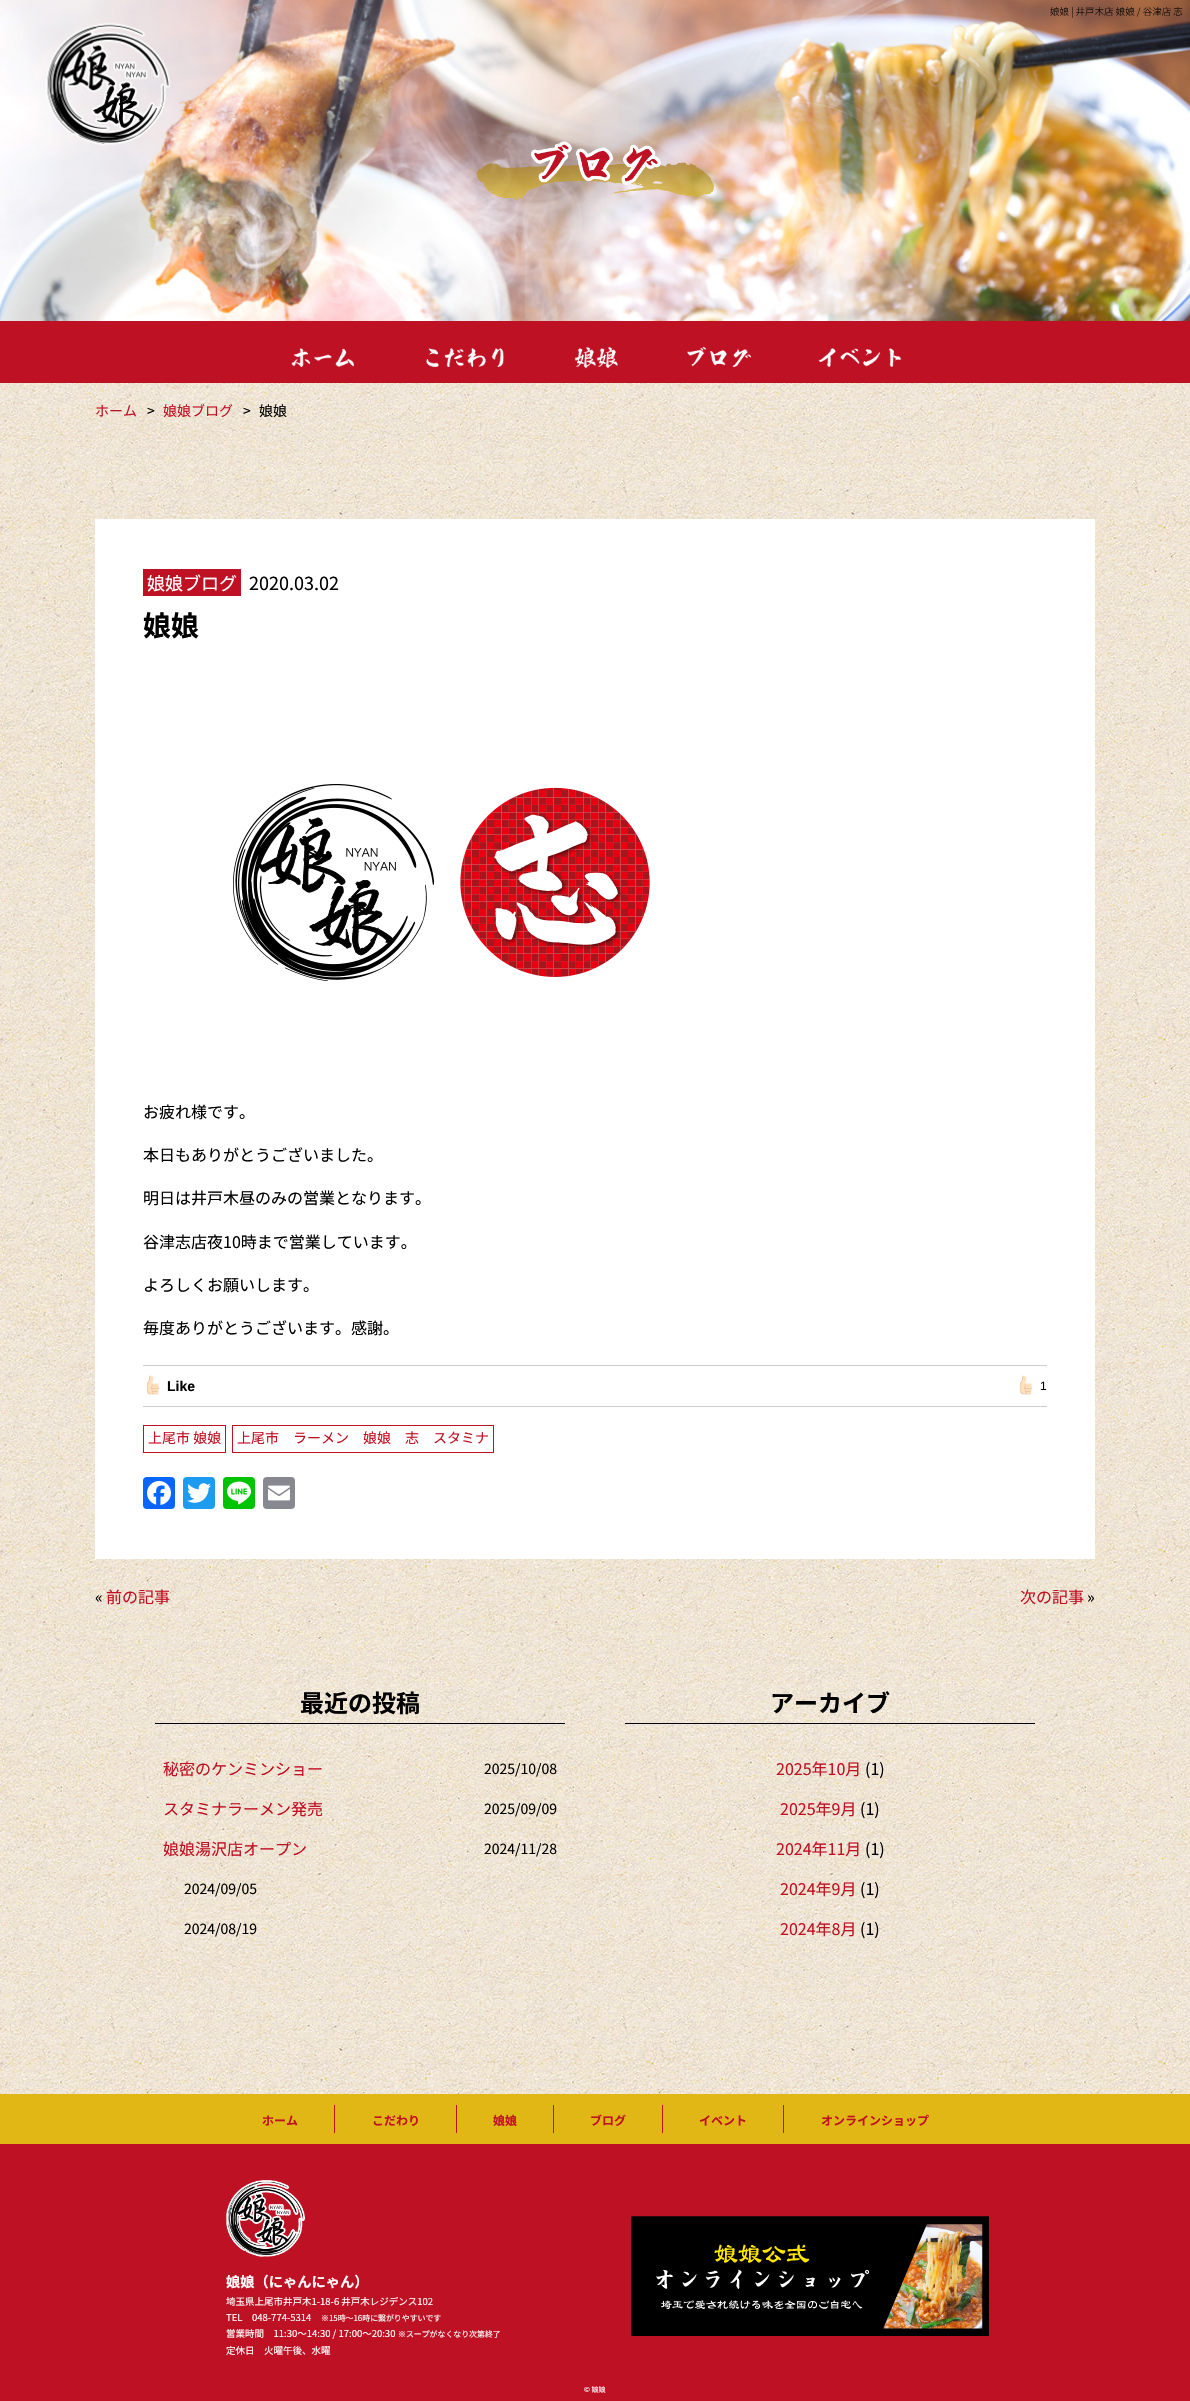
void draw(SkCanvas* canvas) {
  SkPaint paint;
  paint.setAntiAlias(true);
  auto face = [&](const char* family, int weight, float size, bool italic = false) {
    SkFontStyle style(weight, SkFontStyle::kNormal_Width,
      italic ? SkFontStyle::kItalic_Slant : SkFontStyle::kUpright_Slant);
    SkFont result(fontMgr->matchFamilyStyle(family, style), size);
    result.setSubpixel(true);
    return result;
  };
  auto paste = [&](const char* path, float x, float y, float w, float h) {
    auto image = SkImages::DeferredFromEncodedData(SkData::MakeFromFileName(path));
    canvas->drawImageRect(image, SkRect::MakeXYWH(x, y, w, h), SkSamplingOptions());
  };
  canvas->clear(0xffffffff);
  paste("img/1.png", 0, 383, 1190, 1711);
  paste("img/2.png", 0, 0, 1190, 321);
  paste("img/3.png", 476, 141, 238, 59);
  paint.setColor(0xffbf1124);
  canvas->drawRect(SkRect::MakeXYWH(0, 321, 1190, 62), paint);
  paste("img/4.png", 291, 348, 63, 19);
  paste("img/5.png", 426, 348, 78, 19);
  paste("img/6.png", 574, 347, 44, 22);
  paste("img/7.png", 687, 346, 64, 22);
  paste("img/8.png", 818, 348, 84, 19);
  paint.setColor(0xffffffff);
  canvas->drawRect(SkRect::MakeXYWH(95, 519, 1000, 1040), paint);
  paint.setColor(0xffbf1124);
  canvas->drawRect(SkRect::MakeXYWH(143, 569, 98, 27), paint);
  paste("img/9.png", 233, 784, 417, 197);
  paint.setColor(0xffcccccc);
  canvas->drawRect(SkRect::MakeXYWH(143, 1365, 904, 1), paint);
  canvas->drawRect(SkRect::MakeXYWH(143, 1406, 904, 1), paint);
  paste("img/10.png", 146, 1375, 14, 20);
  paste("img/10.png", 1019, 1375, 14, 20);
  paint.setStroke(true);
  paint.setStrokeWidth(1);
  paint.setColor(0xffbf1124);
  canvas->drawRect(SkRect::MakeXYWH(143.5f, 1425.5f, 82, 27), paint);
  canvas->drawRect(SkRect::MakeXYWH(232.5f, 1425.5f, 261, 27), paint);
  paint.setStroke(false);
  paint.setColor(0xff0866ff);
  canvas->drawRoundRect(SkRect::MakeXYWH(143, 1477, 32, 32), 4, 4, paint);
  paste("img/11.png", 147, 1481, 24, 24);
  paint.setColor(0xff1d9bf0);
  canvas->drawRoundRect(SkRect::MakeXYWH(183, 1477, 32, 32), 4, 4, paint);
  paste("img/12.png", 187, 1483, 24, 20);
  paint.setColor(0xff00c300);
  canvas->drawRoundRect(SkRect::MakeXYWH(223, 1477, 32, 32), 4, 4, paint);
  paste("img/13.png", 227, 1481, 24, 24);
  paint.setColor(0xff888990);
  canvas->drawRoundRect(SkRect::MakeXYWH(263, 1477, 32, 32), 4, 4, paint);
  paste("img/14.png", 268, 1485, 22, 16);
  {
    const struct { float x, y, w, h; SkColor color; } items[] = {
      {155, 1723, 410, 1, 0xff000000},
      {625, 1723, 410, 1, 0xff000000},
      {0, 2144, 1190, 257, 0xffbf1124},
      {0, 2094, 1190, 50, 0xffe1b715},
      {334, 2105, 1, 28, 0xffbf1124},
      {456, 2105, 1, 28, 0xffbf1124},
      {553, 2105, 1, 28, 0xffbf1124},
      {662, 2105, 1, 28, 0xffbf1124},
      {783, 2105, 1, 28, 0xffbf1124},
    };
    for (auto [x, y, w, h, color] : items) {
      paint.setColor(color);
      canvas->drawRect(SkRect::MakeXYWH(x, y, w, h), paint);
    }
  }
  paste("img/15.png", 226, 2180, 79, 77);
  paste("img/16.png", 631, 2216, 358, 120);
  auto f0 = face("Noto Sans JP", 300, 9.5f);
  paint.setColor(0xff000000);
  canvas->drawString("娘娘 | 井戸木店 娘娘 / 谷津店 志", 1050, 15, f0, paint);
  auto f1 = face("Noto Sans JP", 400, 14);
  paint.setColor(0xffbf1124);
  canvas->drawString("ホーム", 95, 416, f1, paint);
  paint.setColor(0xff000000);
  canvas->drawString(">", 147, 416, f1, paint);
  paint.setColor(0xffbf1124);
  canvas->drawString("娘娘ブログ", 163, 416, f1, paint);
  paint.setColor(0xff000000);
  canvas->drawString(">", 243, 416, f1, paint);
  canvas->drawString("娘娘", 259, 416, f1, paint);
  auto f2 = face("Noto Sans JP", 400, 18);
  paint.setColor(0xffffffff);
  canvas->drawString("娘娘ブログ", 147, 590, f2, paint);
  paint.setColor(0xff000000);
  canvas->drawString("2020.03.02", 249, 590, f2, paint);
  auto f3 = face("Noto Sans JP", 700, 28);
  canvas->drawString("娘娘", 143, 636, f3, paint);
  auto f4 = face("Noto Sans JP", 400, 16);
  {
    const struct { const char* s; float x, y; } items[] = {
      {"お疲れ様です。", 143, 1118},
      {"本日もありがとうございました。", 143, 1161},
      {"明日は井戸木昼のみの営業となります。", 143, 1204},
      {"谷津志店夜10時まで営業しています。", 143, 1248},
      {"よろしくお願いします。", 143, 1291},
      {"毎度ありがとうございます。感謝。", 143, 1334},
    };
    for (auto [s, x, y] : items) {
      canvas->drawString(s, x, y, f4, paint);
    }
  }
  auto f5 = face("Liberation Sans", 700, 14);
  canvas->drawString("Like", 167, 1391, f5, paint);
  auto f6 = face("Liberation Sans", 400, 12);
  canvas->drawString("1", 1040, 1390, f6, paint);
  paint.setColor(0xffbf1124);
  canvas->drawString("上尾市 娘娘", 148, 1443, f1, paint);
  canvas->drawString("上尾市　ラーメン　娘娘　志　スタミナ", 237, 1443, f1, paint);
  paint.setColor(0xff000000);
  canvas->drawString("«", 95, 1603, f4, paint);
  paint.setColor(0xffbf1124);
  canvas->drawString("前の記事", 106, 1603, f4, paint);
  canvas->drawString("次の記事", 1020, 1603, f4, paint);
  paint.setColor(0xff000000);
  canvas->drawString("»", 1087, 1603, f4, paint);
  auto f7 = face("Noto Sans JP", 700, 24);
  canvas->drawString("最近の投稿", 300, 1712, f7, paint);
  paint.setColor(0xffbf1124);
  canvas->drawString("秘密のケンミンショー", 163, 1775, f4, paint);
  paint.setColor(0xff000000);
  canvas->drawString("2025/10/08", 484, 1774, f1, paint);
  paint.setColor(0xffbf1124);
  canvas->drawString("スタミナラーメン発売", 163, 1815, f4, paint);
  paint.setColor(0xff000000);
  canvas->drawString("2025/09/09", 484, 1814, f1, paint);
  paint.setColor(0xffbf1124);
  canvas->drawString("娘娘湯沢店オープン", 163, 1855, f4, paint);
  paint.setColor(0xff000000);
  {
    const struct { const char* s; float x, y; } items[] = {
      {"2024/11/28", 484, 1854},
      {"2024/09/05", 184, 1894},
      {"2024/08/19", 184, 1934},
    };
    for (auto [s, x, y] : items) {
      canvas->drawString(s, x, y, f1, paint);
    }
  }
  canvas->drawString("アーカイブ", 770, 1712, f7, paint);
  paint.setColor(0xffbf1124);
  canvas->drawString("2025年10月", 776, 1775, f4, paint);
  paint.setColor(0xff000000);
  canvas->drawString("(1)", 865, 1775, f4, paint);
  paint.setColor(0xffbf1124);
  canvas->drawString("2025年9月", 780, 1815, f4, paint);
  paint.setColor(0xff000000);
  canvas->drawString("(1)", 860, 1815, f4, paint);
  paint.setColor(0xffbf1124);
  canvas->drawString("2024年11月", 776, 1855, f4, paint);
  paint.setColor(0xff000000);
  canvas->drawString("(1)", 865, 1855, f4, paint);
  paint.setColor(0xffbf1124);
  canvas->drawString("2024年9月", 780, 1895, f4, paint);
  paint.setColor(0xff000000);
  canvas->drawString("(1)", 860, 1895, f4, paint);
  paint.setColor(0xffbf1124);
  canvas->drawString("2024年8月", 780, 1935, f4, paint);
  paint.setColor(0xff000000);
  canvas->drawString("(1)", 860, 1935, f4, paint);
  auto f8 = face("Noto Sans JP", 700, 12);
  paint.setColor(0xffbf1124);
  {
    const struct { const char* s; float x, y; } items[] = {
      {"ホーム", 262, 2125},
      {"こだわり", 372, 2125},
      {"娘娘", 493, 2125},
      {"ブログ", 590, 2125},
      {"イベント", 699, 2125},
      {"オンラインショップ", 821, 2125},
    };
    for (auto [s, x, y] : items) {
      canvas->drawString(s, x, y, f8, paint);
    }
  }
  auto f9 = face("Noto Sans JP", 700, 14.25f);
  paint.setColor(0xffffffff);
  canvas->drawString("娘娘（にゃんにゃん）", 226, 2287, f9, paint);
  auto f10 = face("Noto Sans JP", 400, 9.5f);
  {
    const struct { const char* s; float x, y; } items[] = {
      {"埼玉県上尾市井戸木1-18-6 井戸木レジデンス102", 226, 2305},
      {"TEL", 226, 2321},
      {"048-774-5314", 252, 2321},
    };
    for (auto [s, x, y] : items) {
      canvas->drawString(s, x, y, f10, paint);
    }
  }
  auto f11 = face("Noto Sans JP", 400, 7.9f);
  canvas->drawString("※15時～16時に繋がりやすいです", 321, 2321, f11, paint);
  canvas->drawString("営業時間　11:30～14:30 / 17:00～20:30", 226, 2337, f10, paint);
  canvas->drawString("※スープがなくなり次第終了", 398, 2337, f11, paint);
  canvas->drawString("定休日　火曜午後、水曜", 226, 2354, f10, paint);
  auto f12 = face("Noto Sans JP", 400, 7);
  canvas->drawString("© 娘娘", 584, 2392, f12, paint);
}
